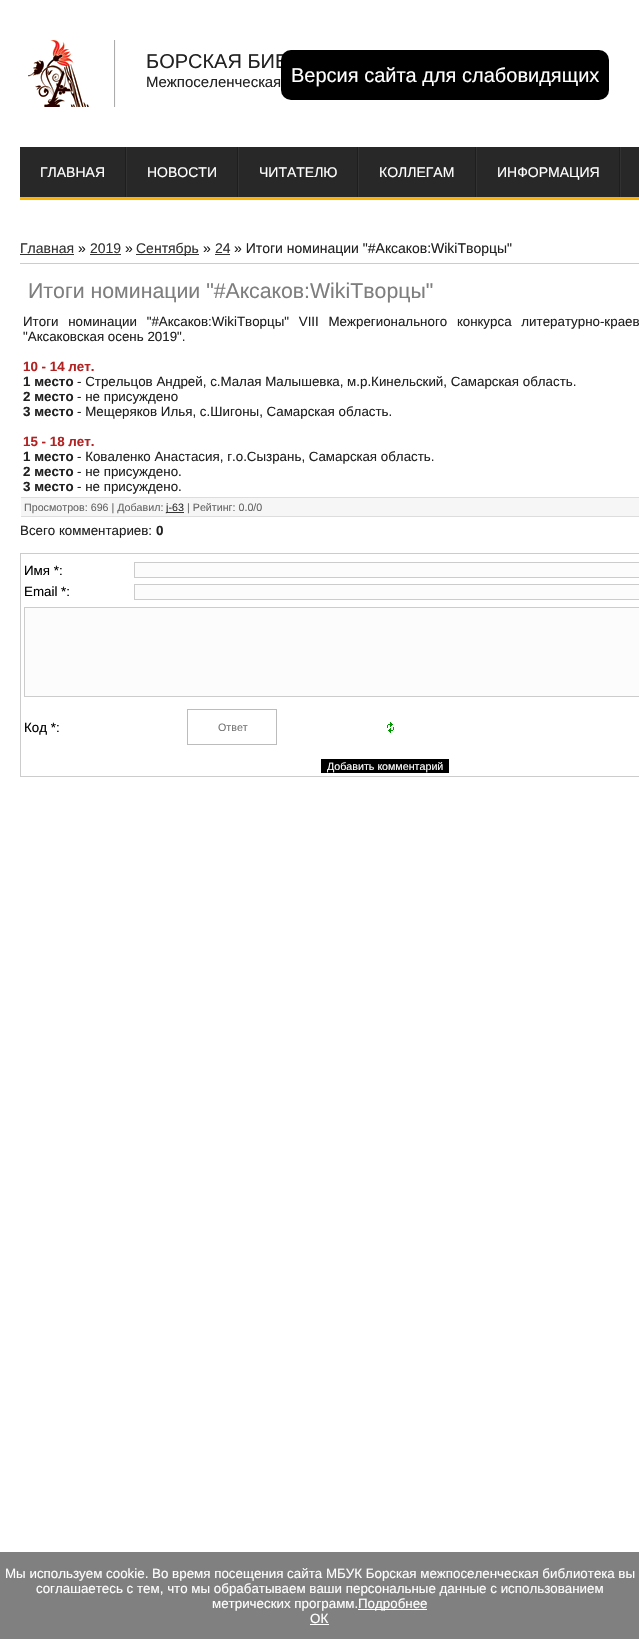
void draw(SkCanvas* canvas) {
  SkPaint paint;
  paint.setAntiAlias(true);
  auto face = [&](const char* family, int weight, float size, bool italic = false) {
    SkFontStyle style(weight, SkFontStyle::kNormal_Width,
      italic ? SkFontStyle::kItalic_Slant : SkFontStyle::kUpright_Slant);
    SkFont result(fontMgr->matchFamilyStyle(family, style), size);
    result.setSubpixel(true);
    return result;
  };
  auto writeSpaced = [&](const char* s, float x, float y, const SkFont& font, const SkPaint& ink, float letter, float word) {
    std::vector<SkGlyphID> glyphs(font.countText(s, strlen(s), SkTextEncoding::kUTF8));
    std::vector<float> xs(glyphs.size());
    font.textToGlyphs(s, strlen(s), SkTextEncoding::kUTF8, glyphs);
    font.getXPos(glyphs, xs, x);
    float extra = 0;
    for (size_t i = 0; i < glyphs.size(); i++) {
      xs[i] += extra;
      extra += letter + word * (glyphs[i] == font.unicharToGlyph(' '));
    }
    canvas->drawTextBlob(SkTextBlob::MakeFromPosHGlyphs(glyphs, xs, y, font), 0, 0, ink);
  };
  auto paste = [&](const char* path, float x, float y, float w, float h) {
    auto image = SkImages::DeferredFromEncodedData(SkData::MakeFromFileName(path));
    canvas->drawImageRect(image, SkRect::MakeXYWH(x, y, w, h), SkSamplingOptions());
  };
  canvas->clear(0xffffffff);
  paste("img/1.png", 28, 40, 88, 67);
  {
    const struct { float x, y, w, h; SkColor color; } items[] = {
      {20, 147, 619, 50, 0xff282828},
      {20, 197, 619, 3, 0xfffeb300},
      {125, 147, 1, 50, 0xff1e1e1e},
      {237, 147, 1, 50, 0xff1e1e1e},
      {126, 147, 1, 50, 0xff323232},
      {357, 147, 1, 50, 0xff1e1e1e},
      {238, 147, 1, 50, 0xff323232},
      {475, 147, 1, 50, 0xff1e1e1e},
      {358, 147, 1, 50, 0xff323232},
      {619, 147, 1, 50, 0xff1e1e1e},
      {476, 147, 1, 50, 0xff323232},
      {620, 147, 1, 50, 0xff323232},
      {20, 254, 54, 1, 0xff333333},
      {90, 254, 31, 1, 0xff333333},
      {136, 254, 63, 1, 0xff333333},
      {215, 254, 15, 1, 0xff333333},
      {20, 263, 619, 1, 0xffcccccc},
      {21, 498, 618, 18, 0xfff6f6f6},
      {21, 497, 618, 1, 0xffdddddd},
      {21, 516, 618, 1, 0xffdddddd},
      {166, 512, 18, 1, 0xff333333},
    };
    for (auto [x, y, w, h, color] : items) {
      paint.setColor(color);
      canvas->drawRect(SkRect::MakeXYWH(x, y, w, h), paint);
    }
  }
  paint.setStroke(true);
  paint.setStrokeWidth(1);
  paint.setColor(0xffcccccc);
  canvas->drawRect(SkRect::MakeXYWH(20.5f, 553.5f, 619, 223), paint);
  paint.setStroke(false);
  paint.setColor(0xfffcfcfc);
  canvas->drawRect(SkRect::MakeXYWH(134.5f, 562.5f, 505, 15), paint);
  paint.setStroke(true);
  paint.setColor(0xffcccccc);
  canvas->drawRect(SkRect::MakeXYWH(134.5f, 562.5f, 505, 15), paint);
  paint.setStroke(false);
  paint.setColor(0xfffcfcfc);
  canvas->drawRect(SkRect::MakeXYWH(134.5f, 584.5f, 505, 15), paint);
  paint.setStroke(true);
  paint.setColor(0xffcccccc);
  canvas->drawRect(SkRect::MakeXYWH(134.5f, 584.5f, 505, 15), paint);
  paint.setStroke(false);
  paint.setColor(0xfffcfcfc);
  canvas->drawRect(SkRect::MakeXYWH(24.5f, 607.5f, 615, 89), paint);
  paint.setStroke(true);
  paint.setColor(0xffcccccc);
  canvas->drawRect(SkRect::MakeXYWH(24.5f, 607.5f, 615, 89), paint);
  paint.setColor(0xffbcbcbc);
  canvas->drawRect(SkRect::MakeXYWH(187.5f, 709.5f, 89, 35), paint);
  paste("img/2.png", 387, 722, 7, 11);
  paint.setStroke(false);
  {
    const struct { float x, y, w, h; SkColor color; } items[] = {
      {321, 759, 128, 14, 0xff000000},
      {0, 1552, 639, 87, 0xff808080},
      {358, 1609, 69, 1, 0xffffffff},
      {310, 1624, 19, 1, 0xffffffff},
    };
    for (auto [x, y, w, h, color] : items) {
      paint.setColor(color);
      canvas->drawRect(SkRect::MakeXYWH(x, y, w, h), paint);
    }
  }
  auto f0 = face("Liberation Sans", 400, 20);
  paint.setColor(0xff222222);
  canvas->drawString("БОРСКАЯ БИБ", 146, 68, f0, paint);
  auto f1 = face("Liberation Sans", 400, 15);
  canvas->drawString("Межпоселенческая", 146, 87, f1, paint);
  auto f2 = face("Liberation Sans", 400, 14);
  paint.setColor(0xffffffff);
  {
    const struct { const char* s; float x, y; } items[] = {
      {"ГЛАВНАЯ", 40, 177},
      {"НОВОСТИ", 147, 177},
      {"ЧИТАТЕЛЮ", 259, 177},
      {"КОЛЛЕГАМ", 379, 177},
      {"ИНФОРМАЦИЯ", 497, 177},
    };
    for (auto [s, x, y] : items) {
      canvas->drawString(s, x, y, f2, paint);
    }
  }
  paint.setColor(0xff000000);
  canvas->drawRoundRect(SkRect::MakeXYWH(281, 50, 328, 50), 10, 10, paint);
  paint.setColor(0xffffffff);
  canvas->drawString("Версия сайта для слабовидящих", 291, 82, f0, paint);
  paint.setColor(0xff333333);
  canvas->drawString("Главная", 20, 253, f2, paint);
  paint.setColor(0xff222222);
  canvas->drawString("»", 78, 253, f2, paint);
  paint.setColor(0xff333333);
  canvas->drawString("2019", 90, 253, f2, paint);
  paint.setColor(0xff222222);
  canvas->drawString("»", 125, 253, f2, paint);
  paint.setColor(0xff333333);
  canvas->drawString("Сентябрь", 136, 253, f2, paint);
  paint.setColor(0xff222222);
  canvas->drawString("»", 203, 253, f2, paint);
  paint.setColor(0xff333333);
  canvas->drawString("24", 215, 253, f2, paint);
  paint.setColor(0xff222222);
  canvas->drawString("» Итоги номинации \"#Аксаков:WikiТворцы\"", 234, 253, f2, paint);
  auto f3 = face("Liberation Sans", 400, 21.3f);
  paint.setColor(0xff7e7e7e);
  canvas->drawString("Итоги номинации \"#Аксаков:WikiТворцы\"", 28, 298, f3, paint);
  auto f4 = face("Liberation Sans", 400, 13.35f);
  paint.setColor(0xff222222);
  writeSpaced("Итоги номинации \"#Аксаков:WikiТворцы\" VIII Межрегионального конкурса литературно-краев", 23, 326, f4, paint, 0, 6);
  canvas->drawString("\"Аксаковская осень 2019\".", 23, 341, f4, paint);
  auto f5 = face("Liberation Sans", 700, 13.35f);
  paint.setColor(0xffb22222);
  canvas->drawString("10 - 14 лет.", 23, 371, f5, paint);
  paint.setColor(0xff222222);
  canvas->drawString("1 место", 23, 386, f5, paint);
  canvas->drawString("- Стрельцов Андрей, с.Малая Малышевка, м.р.Кинельский, Самарская область.", 77, 386, f4, paint);
  canvas->drawString("2 место", 23, 401, f5, paint);
  canvas->drawString("- не присуждено", 77, 401, f4, paint);
  canvas->drawString("3 место", 23, 416, f5, paint);
  canvas->drawString("- Мещеряков Илья, с.Шигоны, Самарская область.", 77, 416, f4, paint);
  paint.setColor(0xffb22222);
  canvas->drawString("15 - 18 лет.", 23, 446, f5, paint);
  paint.setColor(0xff222222);
  canvas->drawString("1 место", 23, 461, f5, paint);
  canvas->drawString("- Коваленко Анастасия, г.о.Сызрань, Самарская область.", 77, 461, f4, paint);
  canvas->drawString("2 место", 23, 476, f5, paint);
  canvas->drawString("- не присуждено.", 77, 476, f4, paint);
  canvas->drawString("3 место", 23, 491, f5, paint);
  canvas->drawString("- не присуждено.", 77, 491, f4, paint);
  auto f6 = face("Liberation Sans", 400, 10.7f);
  paint.setColor(0xff666666);
  canvas->drawString("Просмотров: 696 | Добавил:", 24, 511, f6, paint);
  paint.setColor(0xff333333);
  canvas->drawString("j-63", 166, 511, f6, paint);
  paint.setColor(0xff666666);
  canvas->drawString("| Рейтинг: 0.0/0", 187, 511, f6, paint);
  paint.setColor(0xff222222);
  canvas->drawString("Всего комментариев:", 20, 535, f4, paint);
  canvas->drawString("0", 156, 535, f5, paint);
  paint.setColor(0xff000000);
  {
    const struct { const char* s; float x, y; } items[] = {
      {"Имя *:", 24, 575},
      {"Email *:", 24, 596},
      {"Код *:", 24, 732},
    };
    for (auto [s, x, y] : items) {
      canvas->drawString(s, x, y, f4, paint);
    }
  }
  paint.setColor(0xff757575);
  canvas->drawString("Ответ", 218, 731, f6, paint);
  paint.setColor(0xffffffff);
  canvas->drawString("Добавить комментарий", 327, 770, f6, paint);
  {
    const struct { const char* s; float x, y; } items[] = {
      {"Мы используем cookie. Во время посещения сайта МБУК Борская межпоселенческая библиотека вы", 5, 1578},
      {"соглашаетесь с тем, что мы обрабатываем ваши персональные данные с использованием", 36, 1593},
      {"метрических программ.", 212, 1608},
      {"Подробнее", 358, 1608},
      {"ОК", 310, 1623},
    };
    for (auto [s, x, y] : items) {
      canvas->drawString(s, x, y, f4, paint);
    }
  }
}
